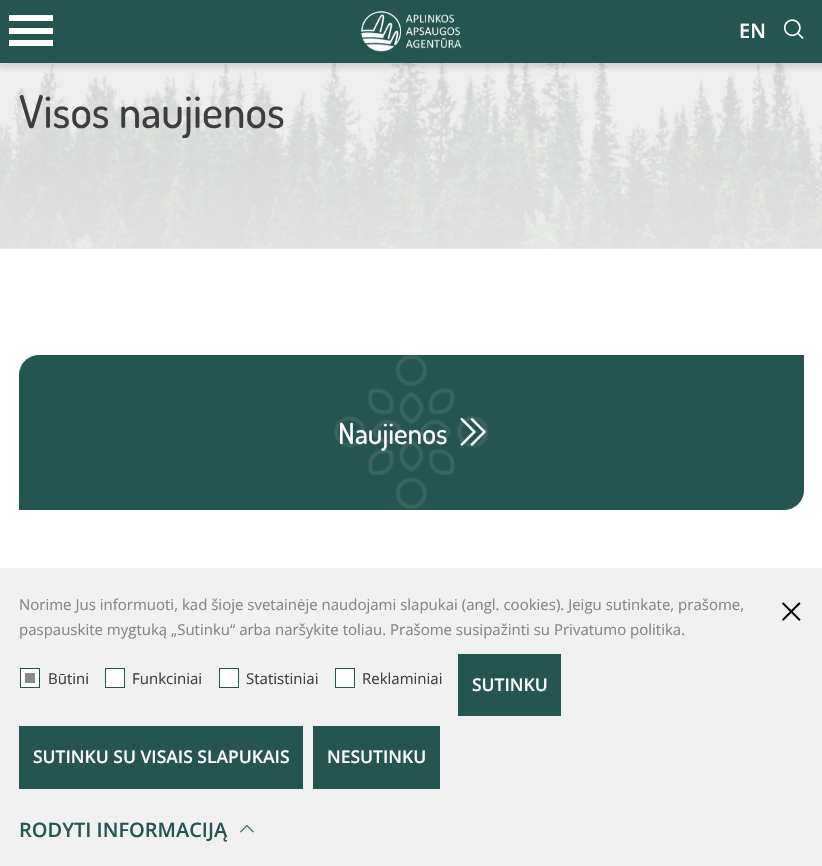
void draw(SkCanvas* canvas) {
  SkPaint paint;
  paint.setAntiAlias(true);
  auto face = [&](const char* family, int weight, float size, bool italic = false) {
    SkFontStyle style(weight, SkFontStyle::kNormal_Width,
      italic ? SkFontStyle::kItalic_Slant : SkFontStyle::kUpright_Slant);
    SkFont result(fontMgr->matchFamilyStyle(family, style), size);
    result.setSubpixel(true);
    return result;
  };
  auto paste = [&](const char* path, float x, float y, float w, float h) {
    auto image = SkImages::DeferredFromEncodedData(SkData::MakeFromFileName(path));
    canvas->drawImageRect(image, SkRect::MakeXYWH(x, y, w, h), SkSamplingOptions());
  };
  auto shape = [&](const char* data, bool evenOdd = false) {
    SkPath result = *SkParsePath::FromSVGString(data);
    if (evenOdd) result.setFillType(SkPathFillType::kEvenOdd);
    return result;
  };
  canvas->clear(0xffffffff);
  paint.setColor(0xffeeeeee);
  canvas->drawRect(SkRect::MakeXYWH(0, 63, 822, 186), paint);
  paste("img/3.png", 0, 63, 822, 186);
  paint.setColor(0x1a000000);
  paint.setMaskFilter(SkMaskFilter::MakeBlur(kNormal_SkBlurStyle, 2));
  canvas->drawRect(SkRect::MakeXYWH(-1, 0, 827, 68), paint);
  paint.setMaskFilter(nullptr);
  {
    const struct { float x, y, w, h; SkColor color; } items[] = {
      {0, 0, 822, 63, 0xff245550},
      {9, 15, 44, 6, 0xffffffff},
      {9, 28, 44, 6, 0xffffffff},
      {9, 40, 44, 6, 0xffffffff},
    };
    for (auto [x, y, w, h, color] : items) {
      paint.setColor(color);
      canvas->drawRect(SkRect::MakeXYWH(x, y, w, h), paint);
    }
  }
  paste("img/1.png", 361, 11, 101, 41);
  paste("img/2.png", 783, 19, 21, 20);
  paint.setColor(0xff245550);
  canvas->drawPath(shape("M39 355H804V490C804 501 795 510 784 510H19V375C19 364 28 355 39 355Z"), paint);
  paste("img/4.png", 334, 355, 155, 154);
  paste("img/5.png", 460, 418, 26, 28);
  paint.setColor(0xfff1f1f1);
  canvas->drawRect(SkRect::MakeXYWH(0, 568, 822, 298), paint);
  paste("img/6.png", 781, 602, 20, 19);
  paint.setColor(0xffffffff);
  canvas->drawRect(SkRect::MakeXYWH(20.5f, 668.5f, 19, 19), paint);
  paint.setStroke(true);
  paint.setStrokeWidth(1);
  paint.setColor(0xff245550);
  canvas->drawRect(SkRect::MakeXYWH(20.5f, 668.5f, 19, 19), paint);
  paint.setStroke(false);
  paint.setColor(0xff8b8b8b);
  canvas->drawRect(SkRect::MakeXYWH(25, 673, 10, 10), paint);
  paint.setColor(0xffffffff);
  canvas->drawRect(SkRect::MakeXYWH(105.5f, 668.5f, 19, 19), paint);
  paint.setStroke(true);
  paint.setColor(0xff245550);
  canvas->drawRect(SkRect::MakeXYWH(105.5f, 668.5f, 19, 19), paint);
  paint.setStroke(false);
  paint.setColor(0xffffffff);
  canvas->drawRect(SkRect::MakeXYWH(219.5f, 668.5f, 19, 19), paint);
  paint.setStroke(true);
  paint.setColor(0xff245550);
  canvas->drawRect(SkRect::MakeXYWH(219.5f, 668.5f, 19, 19), paint);
  paint.setStroke(false);
  paint.setColor(0xffffffff);
  canvas->drawRect(SkRect::MakeXYWH(335.5f, 668.5f, 19, 19), paint);
  paint.setStroke(true);
  paint.setColor(0xff245550);
  canvas->drawRect(SkRect::MakeXYWH(335.5f, 668.5f, 19, 19), paint);
  paint.setStroke(false);
  {
    const struct { float x, y, w, h; SkColor color; } items[] = {
      {458, 654, 103, 62, 0xff245550},
      {19, 726, 284, 63, 0xff245550},
      {313, 726, 127, 63, 0xff245550},
    };
    for (auto [x, y, w, h, color] : items) {
      paint.setColor(color);
      canvas->drawRect(SkRect::MakeXYWH(x, y, w, h), paint);
    }
  }
  paste("img/7.png", 240, 825, 14, 8);
  auto f0 = face("Open Sans", 600, 20);
  paint.setColor(0xffffffff);
  canvas->drawString("EN", 739, 38, f0, paint);
  canvas->save();
  canvas->clipRect(SkRect::MakeXYWH(19, 84, 785, 54));
  auto f1 = face("Dosis", 500, 45);
  paint.setColor(0xff3e3e3e);
  canvas->drawString("Visos naujienos", 19, 128, f1, paint);
  canvas->restore();
  auto f2 = face("Dosis", 500, 29);
  paint.setColor(0xffffffff);
  canvas->drawString("Naujienos", 338, 444, f2, paint);
  auto f3 = face("Open Sans", 400, 15);
  paint.setColor(0xff858585);
  canvas->drawString("Norime Jus informuoti, kad šioje svetainėje naudojami slapukai (angl. cookies). Jeigu sutinkate, prašome,", 19, 610, f3, paint);
  canvas->drawString("paspauskite mygtuką „Sutinku“ arba naršykite toliau. Prašome susipažinti su Privatumo politika.", 19, 635, f3, paint);
  paint.setColor(0xff3e3e3e);
  {
    const struct { const char* s; float x, y; } items[] = {
      {"Būtini", 48, 684},
      {"Funkciniai", 132, 684},
      {"Statistiniai", 246, 684},
      {"Reklaminiai", 362, 684},
    };
    for (auto [s, x, y] : items) {
      canvas->drawString(s, x, y, f3, paint);
    }
  }
  auto f4 = face("Open Sans", 600, 17.5f);
  paint.setColor(0xffffffff);
  {
    const struct { const char* s; float x, y; } items[] = {
      {"SUTINKU", 472, 691},
      {"SUTINKU SU VISAIS SLAPUKAIS", 33, 763},
      {"NESUTINKU", 327, 763},
    };
    for (auto [s, x, y] : items) {
      canvas->drawString(s, x, y, f4, paint);
    }
  }
  paint.setColor(0xff245550);
  canvas->drawString("RODYTI INFORMACIJĄ", 19, 837, f0, paint);
}
